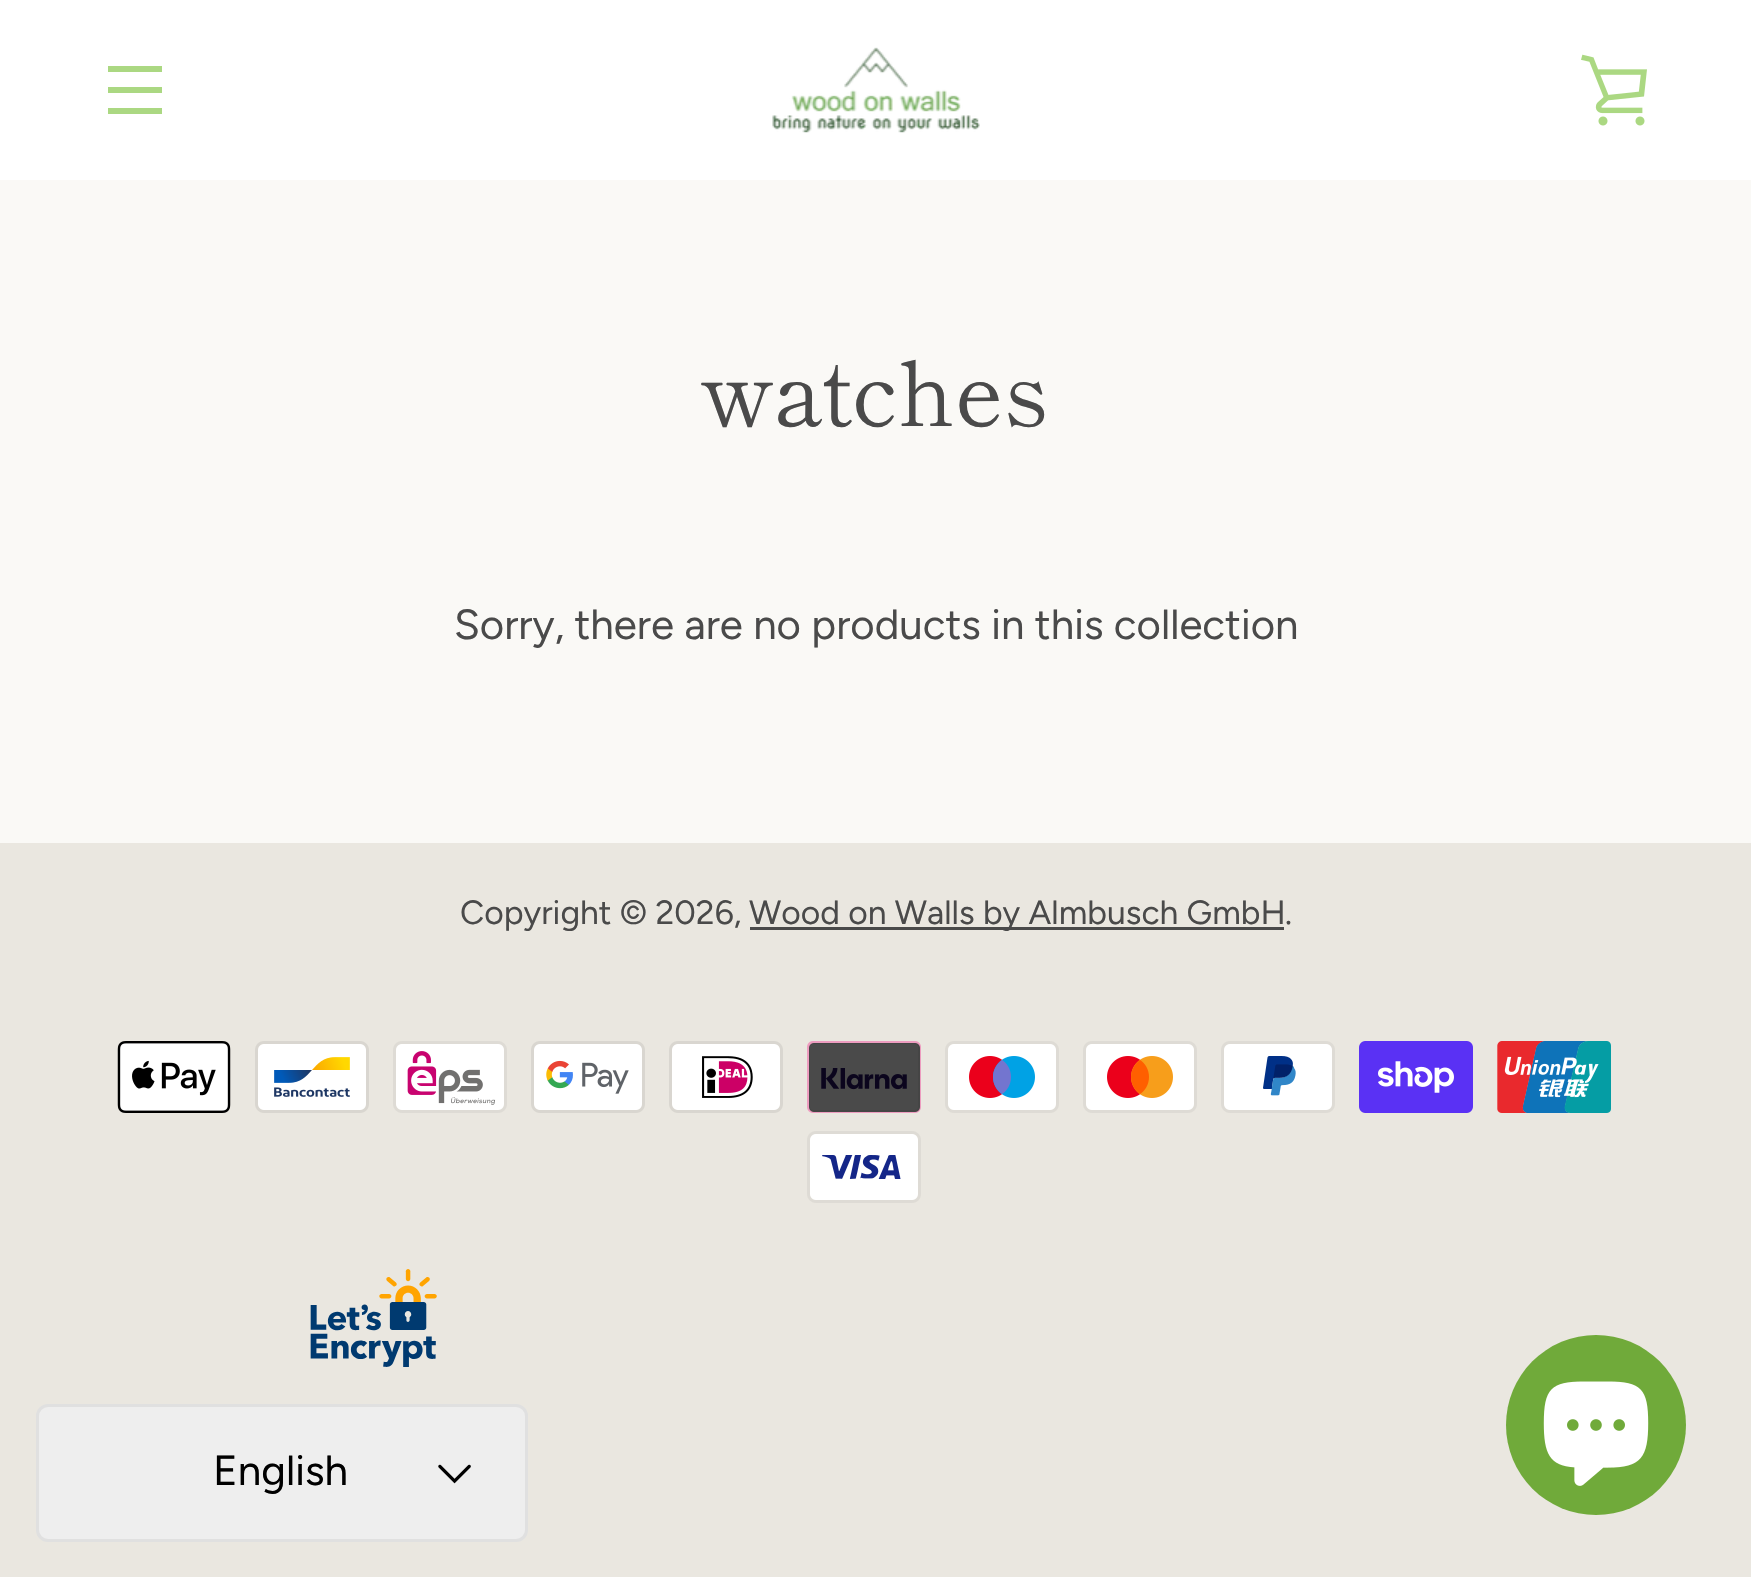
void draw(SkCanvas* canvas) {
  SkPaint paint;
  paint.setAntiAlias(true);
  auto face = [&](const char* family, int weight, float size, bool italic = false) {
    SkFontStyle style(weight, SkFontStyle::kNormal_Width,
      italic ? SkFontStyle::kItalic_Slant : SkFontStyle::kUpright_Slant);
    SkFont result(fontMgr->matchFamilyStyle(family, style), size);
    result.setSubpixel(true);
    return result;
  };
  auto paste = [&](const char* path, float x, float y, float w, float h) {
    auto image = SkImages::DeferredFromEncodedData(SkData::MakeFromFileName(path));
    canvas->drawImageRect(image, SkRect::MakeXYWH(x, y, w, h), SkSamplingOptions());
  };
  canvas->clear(0xffeae7e0);
  {
    const struct { float x, y, w, h; SkColor color; } items[] = {
      {0, 0, 1751, 180, 0xffffffff},
      {108, 66, 54, 6, 0xffabd882},
      {108, 87, 54, 6, 0xffabd882},
      {108, 108, 54, 6, 0xffabd882},
    };
    for (auto [x, y, w, h, color] : items) {
      paint.setColor(color);
      canvas->drawRect(SkRect::MakeXYWH(x, y, w, h), paint);
    }
  }
  paste("img/1.png", 772, 47, 208, 86);
  paste("img/2.png", 1581, 54, 66, 72);
  paint.setColor(0xfffaf9f6);
  canvas->drawRect(SkRect::MakeXYWH(0, 180, 1751, 663), paint);
  paint.setColor(0xff4a4a4a);
  canvas->drawRect(SkRect::MakeXYWH(750, 927, 534, 3), paint);
  paste("img/3.png", 117, 1041, 114, 72);
  paste("img/4.png", 255, 1041, 114, 72);
  paste("img/5.png", 393, 1041, 114, 72);
  paste("img/6.png", 531, 1041, 114, 72);
  paste("img/7.png", 669, 1041, 114, 72);
  paste("img/8.png", 807, 1041, 114, 72);
  paste("img/9.png", 945, 1041, 114, 72);
  paste("img/10.png", 1083, 1041, 114, 72);
  paste("img/11.png", 1221, 1041, 114, 72);
  paste("img/12.png", 1359, 1041, 114, 72);
  paste("img/13.png", 1497, 1041, 114, 72);
  paste("img/14.png", 807, 1131, 114, 72);
  paste("img/15.png", 310, 1269, 127, 98);
  paint.setColor(0xffeeeeee);
  canvas->drawRoundRect(SkRect::MakeXYWH(37.5f, 1405.5f, 489, 135), 10.5f, 10.5f, paint);
  paint.setStroke(true);
  paint.setStrokeWidth(3);
  paint.setColor(0xffe0e0e0);
  canvas->drawRoundRect(SkRect::MakeXYWH(37.5f, 1405.5f, 489, 135), 10.5f, 10.5f, paint);
  paste("img/16.png", 438, 1464, 33, 20);
  paint.setStroke(false);
  paint.setColor(0xff70aa3a);
  canvas->drawCircle(1596, 1425, 90, paint);
  paste("img/17.png", 1543, 1381, 106, 105);
  auto f0 = face("Shippori Mincho", 400, 90);
  paint.setColor(0xff4a4a4a);
  canvas->drawString("watches", 703, 426, f0, paint);
  auto f1 = face("Figtree", 400, 42);
  canvas->drawString("Sorry, there are no products in this collection", 454, 639, f1, paint);
  auto f2 = face("Figtree", 400, 33.6f);
  {
    const struct { const char* s; float x, y; } items[] = {
      {"Copyright © 2026,", 460, 924},
      {"Wood on Walls by Almbusch GmbH", 749, 924},
      {".", 1285, 924},
    };
    for (auto [s, x, y] : items) {
      canvas->drawString(s, x, y, f2, paint);
    }
  }
  paint.setColor(0xff000000);
  canvas->drawString("English", 213, 1485, f1, paint);
}
